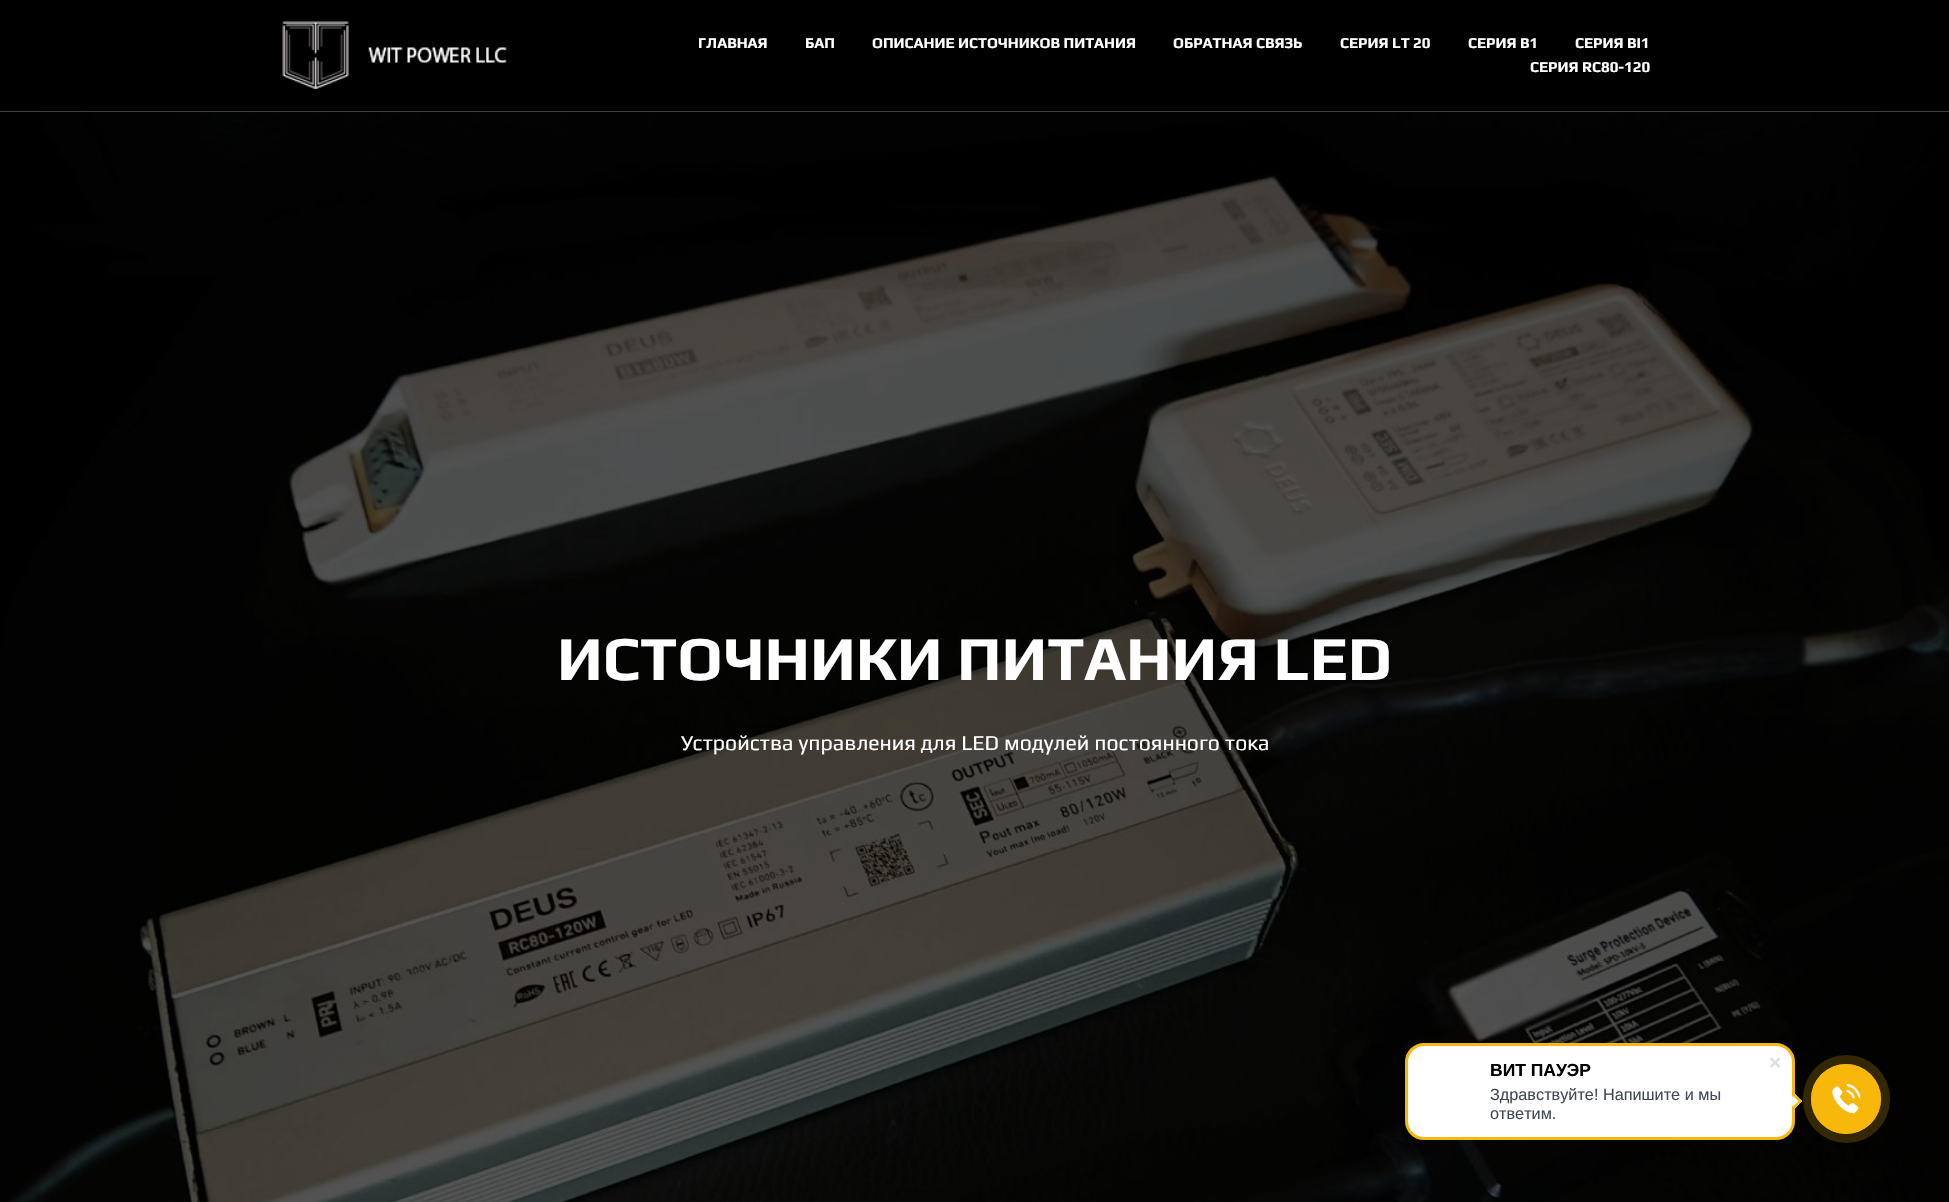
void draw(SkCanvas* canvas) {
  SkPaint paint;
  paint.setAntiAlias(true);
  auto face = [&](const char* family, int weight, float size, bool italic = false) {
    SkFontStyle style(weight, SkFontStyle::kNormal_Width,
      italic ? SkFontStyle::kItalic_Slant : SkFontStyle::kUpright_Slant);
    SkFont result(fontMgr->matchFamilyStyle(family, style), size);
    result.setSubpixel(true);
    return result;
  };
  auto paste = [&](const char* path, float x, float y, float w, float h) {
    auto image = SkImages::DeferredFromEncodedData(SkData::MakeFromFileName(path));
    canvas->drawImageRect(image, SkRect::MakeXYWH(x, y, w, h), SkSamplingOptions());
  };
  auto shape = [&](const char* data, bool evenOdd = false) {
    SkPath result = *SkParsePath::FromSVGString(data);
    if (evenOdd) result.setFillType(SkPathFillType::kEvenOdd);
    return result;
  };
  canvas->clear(0xffffffff);
  paint.setColor(0xff000000);
  canvas->drawRect(SkRect::MakeXYWH(0, 0, 1949, 111), paint);
  paste("img/1.png", 282, 21, 225, 69);
  paste("img/2.png", 0, 111, 1949, 1091);
  paint.setColor(0xffffffff);
  canvas->drawRoundRect(SkRect::MakeXYWH(1406.5f, 1044.5f, 387, 94), 17.5f, 17.5f, paint);
  paint.setStroke(true);
  paint.setStrokeWidth(3);
  paint.setColor(0xfff7b70b);
  canvas->drawRoundRect(SkRect::MakeXYWH(1406.5f, 1044.5f, 387, 94), 17.5f, 17.5f, paint);
  paste("img/3.png", 1770, 1057, 10, 11);
  paint.setStroke(false);
  paint.setColor(0xffffffff);
  canvas->drawPath(shape("M1788 1101L1795 1094L1802 1101L1795 1108.5Z"), paint);
  paint.setColor(0xfff7b70b);
  canvas->drawPath(shape("M1793 1096L1795 1094L1802 1101L1800.5 1103Z"), paint);
  canvas->drawPath(shape("M1793 1106.5L1800.5 1099.5L1802 1101L1795 1108.5Z"), paint);
  paint.setColor(0x33f7b70b);
  canvas->drawRoundRect(SkRect::MakeXYWH(1803, 1055, 87, 88), 43.5f, 43.5f, paint);
  paint.setStroke(true);
  paint.setStrokeWidth(1);
  paint.setColor(0xfff7b70b);
  canvas->drawCircle(1846, 1099, 34.5f, paint);
  paint.setStroke(false);
  canvas->drawCircle(1846, 1099, 35, paint);
  paste("img/4.png", 1832, 1084, 29, 30);
  auto f0 = face("Play", 700, 15);
  paint.setColor(0xffffffff);
  {
    const struct { const char* s; float x, y; } items[] = {
      {"ГЛАВНАЯ", 698, 48},
      {"БАП", 805, 48},
      {"ОПИСАНИЕ ИСТОЧНИКОВ ПИТАНИЯ", 872, 48},
      {"ОБРАТНАЯ СВЯЗЬ", 1173, 48},
      {"СЕРИЯ LT 20", 1340, 48},
      {"СЕРИЯ B1", 1468, 48},
      {"СЕРИЯ BI1", 1575, 48},
      {"СЕРИЯ RC80-120", 1530, 72},
    };
    for (auto [s, x, y] : items) {
      canvas->drawString(s, x, y, f0, paint);
    }
  }
  auto f1 = face("Play", 700, 62.5f);
  canvas->drawString("ИСТОЧНИКИ ПИТАНИЯ LED", 557, 680, f1, paint);
  auto f2 = face("Play", 400, 21.25f);
  canvas->drawString("Устройства управления для LED модулей постоянного тока", 681, 750, f2, paint);
  auto f3 = face("Liberation Sans", 700, 17.5f);
  paint.setColor(0xff000000);
  canvas->drawString("ВИТ ПАУЭР", 1490, 1076, f3, paint);
  auto f4 = face("Liberation Sans", 400, 16.25f);
  paint.setColor(0xff424956);
  canvas->drawString("Здравствуйте! Напишите и мы", 1490, 1100, f4, paint);
  canvas->drawString("ответим.", 1490, 1119, f4, paint);
}
